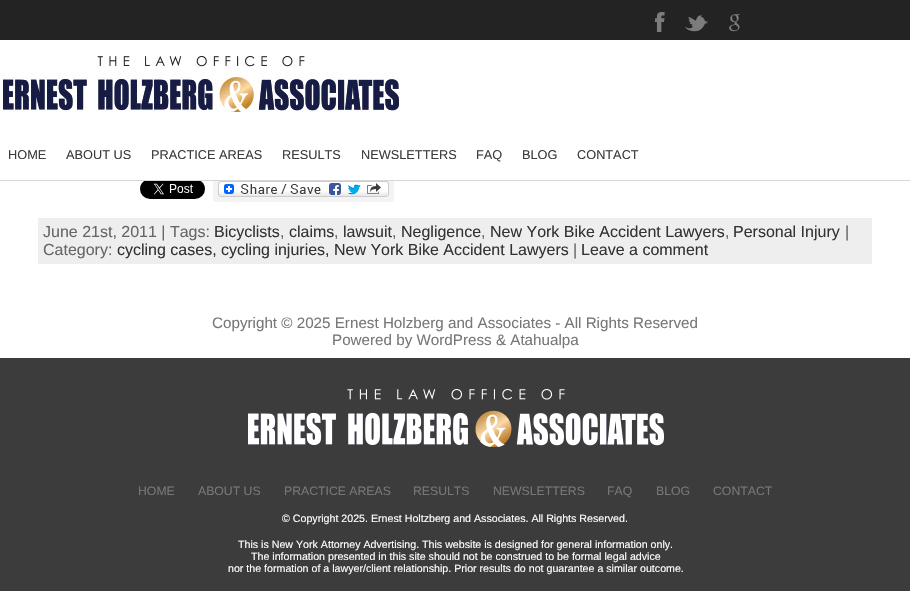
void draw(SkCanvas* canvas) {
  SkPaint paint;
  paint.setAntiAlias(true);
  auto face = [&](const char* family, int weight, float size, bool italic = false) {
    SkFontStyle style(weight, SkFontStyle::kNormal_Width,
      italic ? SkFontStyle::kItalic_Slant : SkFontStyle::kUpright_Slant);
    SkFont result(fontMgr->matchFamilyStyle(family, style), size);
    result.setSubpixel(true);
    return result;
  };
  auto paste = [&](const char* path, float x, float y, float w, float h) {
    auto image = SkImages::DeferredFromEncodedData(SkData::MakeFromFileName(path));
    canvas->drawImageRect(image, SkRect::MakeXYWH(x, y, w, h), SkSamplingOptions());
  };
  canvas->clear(0xffffffff);
  paint.setColor(0xfff3f3f3);
  canvas->drawRoundRect(SkRect::MakeXYWH(213, 176, 181, 26), 3, 3, paint);
  {
    const struct { float x, y, w, h; SkColor color; } items[] = {
      {213, 176, 181, 4, 0xffffffff},
      {0, 180, 910, 1, 0xffd7d7d7},
      {0, 0, 910, 40, 0xff232323},
    };
    for (auto [x, y, w, h, color] : items) {
      paint.setColor(color);
      canvas->drawRect(SkRect::MakeXYWH(x, y, w, h), paint);
    }
  }
  paste("img/1.png", 655, 12, 10, 20);
  paste("img/2.png", 685, 15, 23, 17);
  paste("img/3.png", 729, 14, 11, 18);
  paste("img/4.png", 0, 56, 400, 56);
  paste("img/5.png", 140, 181, 65, 18);
  paste("img/6.png", 218, 181, 171, 16);
  paint.setColor(0xffeeeeee);
  canvas->drawRect(SkRect::MakeXYWH(38, 218, 834, 46), paint);
  paint.setColor(0xff3c3c3c);
  canvas->drawRect(SkRect::MakeXYWH(0, 358, 910, 233), paint);
  paste("img/7.png", 248, 389, 416, 58);
  auto f0 = face("Liberation Sans", 400, 12.75f);
  {
    const struct { const char* s; float x, y; } items[] = {
      {"HOME", 8, 159},
      {"ABOUT US", 66, 159},
      {"PRACTICE AREAS", 151, 159},
      {"RESULTS", 282, 159},
      {"NEWSLETTERS", 361, 159},
      {"FAQ", 476, 159},
      {"BLOG", 522, 159},
      {"CONTACT", 577, 159},
    };
    for (auto [s, x, y] : items) {
      canvas->drawString(s, x, y, f0, paint);
    }
  }
  auto f1 = face("Liberation Sans", 400, 16);
  paint.setColor(0xff666666);
  canvas->drawString("June 21st, 2011 | Tags:", 43, 237, f1, paint);
  paint.setColor(0xff333333);
  canvas->drawString("Bicyclists", 214, 237, f1, paint);
  paint.setColor(0xff666666);
  canvas->drawString(",", 280, 237, f1, paint);
  paint.setColor(0xff333333);
  canvas->drawString("claims", 289, 237, f1, paint);
  paint.setColor(0xff666666);
  canvas->drawString(",", 334, 237, f1, paint);
  paint.setColor(0xff333333);
  canvas->drawString("lawsuit", 343, 237, f1, paint);
  paint.setColor(0xff666666);
  canvas->drawString(",", 392, 237, f1, paint);
  paint.setColor(0xff333333);
  canvas->drawString("Negligence", 401, 237, f1, paint);
  paint.setColor(0xff666666);
  canvas->drawString(",", 481, 237, f1, paint);
  paint.setColor(0xff333333);
  canvas->drawString("New York Bike Accident Lawyers", 490, 237, f1, paint);
  paint.setColor(0xff666666);
  canvas->drawString(",", 725, 237, f1, paint);
  paint.setColor(0xff333333);
  canvas->drawString("Personal Injury", 733, 237, f1, paint);
  paint.setColor(0xff666666);
  canvas->drawString("|", 845, 237, f1, paint);
  canvas->drawString("Category:", 43, 255, f1, paint);
  paint.setColor(0xff333333);
  canvas->drawString("cycling cases, cycling injuries, New York Bike Accident Lawyers", 117, 255, f1, paint);
  paint.setColor(0xff666666);
  canvas->drawString("|", 573, 255, f1, paint);
  paint.setColor(0xff333333);
  canvas->drawString("Leave a comment", 581, 255, f1, paint);
  auto f2 = face("Liberation Sans", 400, 15.2f);
  paint.setColor(0xff777777);
  canvas->drawString("Copyright © 2025 Ernest Holzberg and Associates - All Rights Reserved", 212, 328, f2, paint);
  canvas->drawString("Powered by WordPress & Atahualpa", 332, 345, f2, paint);
  auto f3 = face("Liberation Sans", 400, 12.25f);
  {
    const struct { const char* s; float x, y; } items[] = {
      {"HOME", 138, 495},
      {"ABOUT US", 198, 495},
      {"PRACTICE AREAS", 284, 495},
      {"RESULTS", 413, 495},
      {"NEWSLETTERS", 493, 495},
      {"FAQ", 607, 495},
      {"BLOG", 656, 495},
      {"CONTACT", 713, 495},
    };
    for (auto [s, x, y] : items) {
      canvas->drawString(s, x, y, f3, paint);
    }
  }
  auto f4 = face("Liberation Sans", 400, 10.65f);
  paint.setColor(0xffffffff);
  {
    const struct { const char* s; float x, y; } items[] = {
      {"© Copyright 2025. Ernest Holtzberg and Associates. All Rights Reserved.", 282, 522},
      {"This is New York Attorney Advertising. This website is designed for general information only.", 238, 548},
      {"The information presented in this site should not be construed to be formal legal advice", 251, 560},
      {"nor the formation of a lawyer/client relationship. Prior results do not guarantee a similar outcome.", 228, 572},
    };
    for (auto [s, x, y] : items) {
      canvas->drawString(s, x, y, f4, paint);
    }
  }
}
